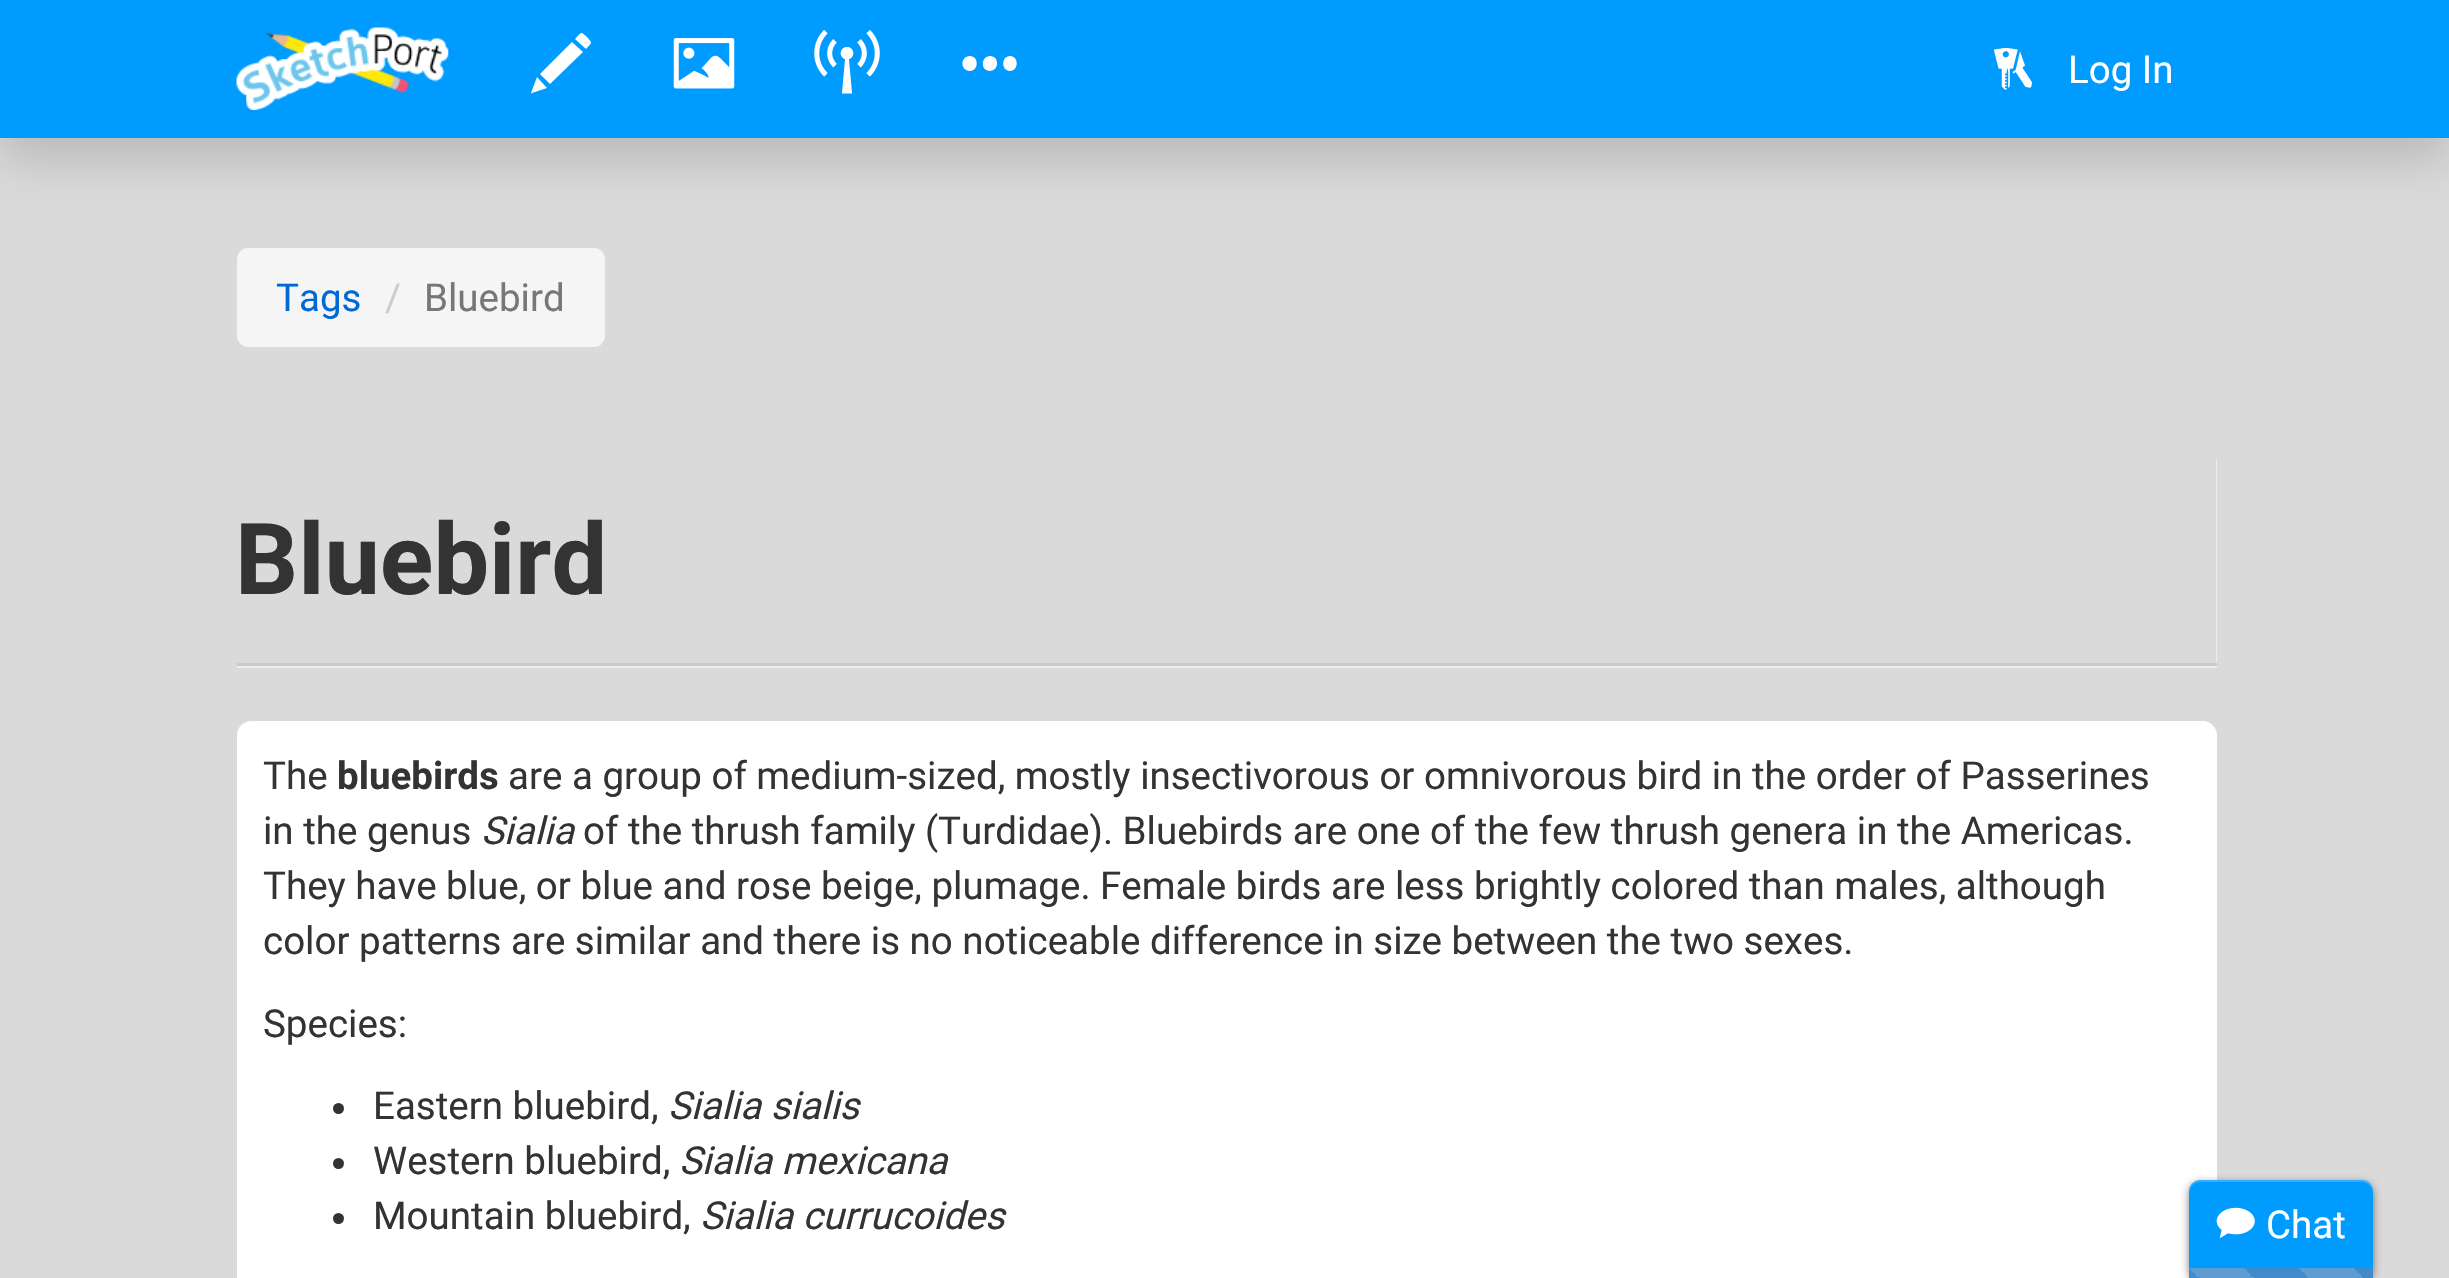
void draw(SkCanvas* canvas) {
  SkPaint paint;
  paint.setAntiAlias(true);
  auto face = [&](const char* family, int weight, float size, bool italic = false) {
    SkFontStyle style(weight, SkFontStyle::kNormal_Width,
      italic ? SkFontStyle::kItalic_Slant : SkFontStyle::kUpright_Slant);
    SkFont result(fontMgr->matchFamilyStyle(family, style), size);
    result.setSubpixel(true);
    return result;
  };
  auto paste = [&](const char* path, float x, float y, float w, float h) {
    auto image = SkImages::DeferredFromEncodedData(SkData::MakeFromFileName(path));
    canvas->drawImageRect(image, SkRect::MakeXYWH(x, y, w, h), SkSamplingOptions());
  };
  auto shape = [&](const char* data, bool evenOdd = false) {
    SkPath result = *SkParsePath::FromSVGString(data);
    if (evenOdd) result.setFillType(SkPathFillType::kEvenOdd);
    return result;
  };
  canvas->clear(0xffdadada);
  paint.setColor(0x26000000);
  paint.setMaskFilter(SkMaskFilter::MakeBlur(kNormal_SkBlurStyle, 22));
  canvas->drawRect(SkRect::MakeXYWH(0, 22, 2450, 138), paint);
  paint.setMaskFilter(nullptr);
  paint.setColor(0xff009bff);
  canvas->drawRect(SkRect::MakeXYWH(0, 0, 2449, 138), paint);
  paste("img/1.png", 236, 27, 213, 83);
  paint.setColor(0xffffffff);
  canvas->drawPath(shape("M586 49L575 39C582 32 580 31 587 37C593 44 592 42 586 49ZM550 84L540 74L572 42L583 52ZM532 93C531 94 531 93 531 93L537 77L547 88Z"), paint);
  paste("img/2.png", 673, 38, 62, 51);
  paste("img/3.png", 814, 29, 66, 65);
  canvas->drawPath(shape("M970 71C960 71 960 56 970 56C979 56 979 71 970 71ZM990 71C980 71 981 56 990 56C1000 56 999 71 990 71ZM1010 71C1001 71 1001 56 1010 56C1019 56 1019 71 1010 71Z"), paint);
  paste("img/4.png", 1994, 47, 39, 43);
  paint.setColor(0xfff5f5f5);
  canvas->drawRoundRect(SkRect::MakeXYWH(237, 248, 368, 99), 11, 11, paint);
  paint.setColor(0xffededed);
  canvas->drawPath(shape("M237 666V668H2217V459H2216V666Z"), paint);
  paint.setColor(0xffcccccc);
  canvas->drawRect(SkRect::MakeXYWH(237, 663, 1980, 3), paint);
  paint.setColor(0xffffffff);
  canvas->drawPath(shape("M251 721H2203C2210.5 721 2217 727.5 2217 735V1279H237V735C237 727.5 243.5 721 251 721Z"), paint);
  paint.setColor(0xff333333);
  canvas->drawCircle(338.5f, 1108.5f, 5.5f, paint);
  canvas->drawCircle(338.5f, 1163.5f, 5.5f, paint);
  canvas->drawCircle(338.5f, 1218.5f, 5.5f, paint);
  paint.setColor(0x80000000);
  paint.setMaskFilter(SkMaskFilter::MakeBlur(kNormal_SkBlurStyle, 4));
  canvas->drawRoundRect(SkRect::MakeXYWH(2189, 1183, 184, 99), 11, 11, paint);
  paint.setMaskFilter(nullptr);
  paint.setColor(0xff009bff);
  canvas->drawPath(shape("M2200 1180H2362C2368 1180 2373 1185 2373 1191V1268H2189V1191C2189 1185 2194 1180 2200 1180Z"), paint);
  paint.setColor(0x33ffffff);
  canvas->drawPath(shape("M2200 1182H2362C2368 1182 2373 1187 2373 1194V1191C2373 1185 2368 1180 2362 1180H2200C2194 1180 2189 1185 2189 1191V1194C2189 1187 2194 1182 2200 1182Z"), paint);
  paste("img/5.png", 2216, 1207, 39, 31);
  {
    const SkColor colors[] = {0xff5e9cd2, 0xff428bca, 0xff428bca, 0xff5e9cd2, 0xff5e9cd2, 0xff428bca, 0xff428bca};
    const float stops[] = {0.25f, 0.25f, 0.5f, 0.5f, 0.75f, 0.75f, 1};
    const SkPoint ends[] = {{2189, 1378}, {2299, 1268}};
    paint.setShader(SkGradientShader::MakeLinear(ends, colors, stops, 7, SkTileMode::kClamp));
    paint.setAlpha(255);
  }
  canvas->drawRect(SkRect::MakeXYWH(2189, 1268, 110, 10), paint);
  {
    const SkColor colors[] = {0xff5e9cd2, 0xff428bca, 0xff428bca, 0xff5e9cd2, 0xff5e9cd2, 0xff428bca, 0xff428bca};
    const float stops[] = {0.25f, 0.25f, 0.5f, 0.5f, 0.75f, 0.75f, 1};
    const SkPoint ends[] = {{2299, 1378}, {2409, 1268}};
    paint.setShader(SkGradientShader::MakeLinear(ends, colors, stops, 7, SkTileMode::kClamp));
    paint.setAlpha(255);
  }
  canvas->drawRect(SkRect::MakeXYWH(2299, 1268, 74, 10), paint);
  auto f0 = face("Roboto", 400, 38.5f);
  paint.setShader(nullptr);
  paint.setColor(0xffffffff);
  canvas->drawString("Log In", 2068, 83, f0, paint);
  paint.setColor(0xff0069d6);
  canvas->drawString("Tags", 276, 311, f0, paint);
  paint.setColor(0xffcccccc);
  canvas->drawString("/", 385, 311, f0, paint);
  paint.setColor(0xff777777);
  canvas->drawString("Bluebird", 424, 311, f0, paint);
  auto f1 = face("Roboto", 700, 99);
  paint.setColor(0xff333333);
  canvas->drawString("Bluebird", 235, 594, f1, paint);
  canvas->drawString("The", 263, 789, f0, paint);
  auto f2 = face("Roboto", 700, 38.5f);
  canvas->drawString("bluebirds", 337, 789, f2, paint);
  canvas->drawString("are a group of medium-sized, mostly insectivorous or omnivorous bird in the order of Passerines", 508, 789, f0, paint);
  canvas->drawString("in the genus", 263, 844, f0, paint);
  auto f3 = face("Roboto", 400, 38.5f, true);
  canvas->drawString("Sialia", 481, 844, f3, paint);
  {
    const struct { const char* s; float x, y; } items[] = {
      {"of the thrush family (Turdidae). Bluebirds are one of the few thrush genera in the Americas.", 583, 844},
      {"They have blue, or blue and rose beige, plumage. Female birds are less brightly colored than males, although", 263, 899},
      {"color patterns are similar and there is no noticeable difference in size between the two sexes.", 263, 954},
      {"Species:", 263, 1037},
      {"Eastern bluebird,", 373, 1119},
    };
    for (auto [s, x, y] : items) {
      canvas->drawString(s, x, y, f0, paint);
    }
  }
  canvas->drawString("Sialia sialis", 668, 1119, f3, paint);
  canvas->drawString("Western bluebird,", 373, 1174, f0, paint);
  canvas->drawString("Sialia mexicana", 679, 1174, f3, paint);
  canvas->drawString("Mountain bluebird,", 373, 1229, f0, paint);
  canvas->drawString("Sialia currucoides", 700, 1229, f3, paint);
  paint.setColor(0xffffffff);
  canvas->drawString("Chat", 2266, 1238, f0, paint);
}
